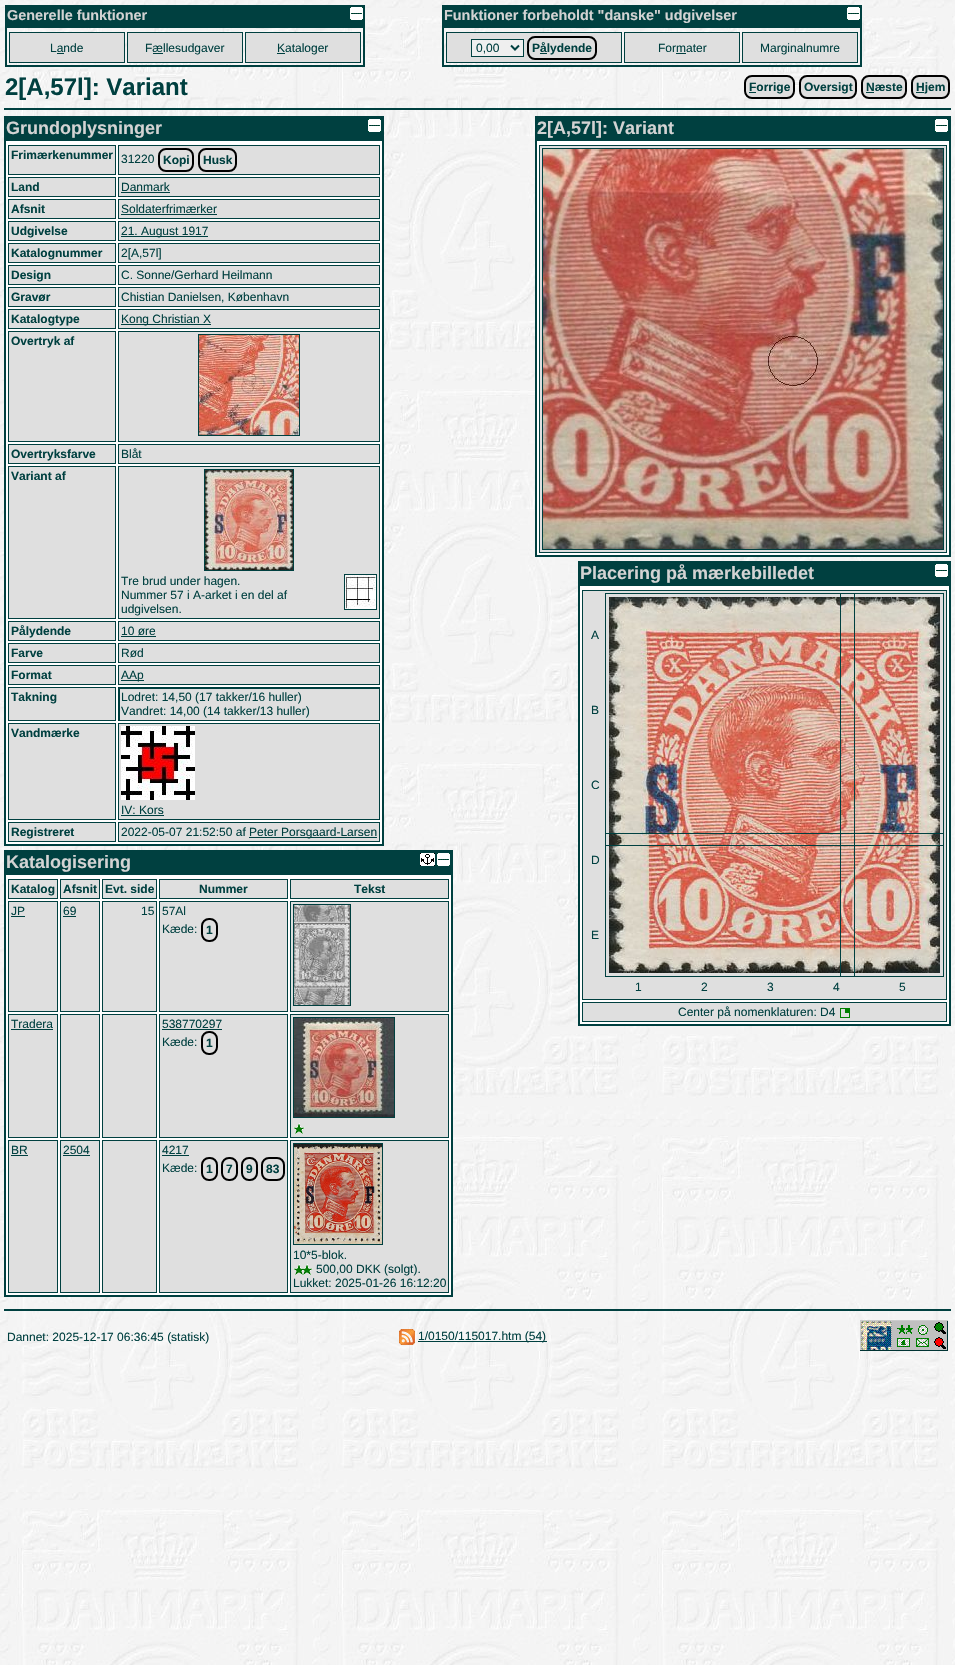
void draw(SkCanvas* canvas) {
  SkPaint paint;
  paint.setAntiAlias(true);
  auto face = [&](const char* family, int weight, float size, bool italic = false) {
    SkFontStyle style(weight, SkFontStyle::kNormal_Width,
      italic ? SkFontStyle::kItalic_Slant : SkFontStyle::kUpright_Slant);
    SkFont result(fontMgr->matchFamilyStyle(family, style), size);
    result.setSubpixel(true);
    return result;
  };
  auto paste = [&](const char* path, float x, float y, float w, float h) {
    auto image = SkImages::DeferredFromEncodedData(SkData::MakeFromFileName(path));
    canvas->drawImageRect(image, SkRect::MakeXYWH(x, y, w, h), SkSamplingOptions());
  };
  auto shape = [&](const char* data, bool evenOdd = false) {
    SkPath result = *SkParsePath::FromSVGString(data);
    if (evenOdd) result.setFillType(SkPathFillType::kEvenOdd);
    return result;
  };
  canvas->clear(0xffffffff);
  paste("img/1.png", 0, 0, 955, 1665);
  paint.setStroke(true);
  paint.setStrokeWidth(2);
  paint.setColor(0xff004040);
  canvas->drawRect(SkRect::MakeXYWH(6, 6, 358, 60), paint);
  paint.setStroke(false);
  canvas->drawRect(SkRect::MakeXYWH(7, 7, 356, 21), paint);
  paste("img/2.png", 350, 7, 13, 13);
  paint.setColor(0xffdfdfdf);
  canvas->drawRect(SkRect::MakeXYWH(9.5f, 32.5f, 115, 30), paint);
  paint.setStroke(true);
  paint.setStrokeWidth(1);
  paint.setColor(0xff004040);
  canvas->drawRect(SkRect::MakeXYWH(9.5f, 32.5f, 115, 30), paint);
  paint.setStroke(false);
  canvas->drawRect(SkRect::MakeXYWH(57, 53, 7, 1), paint);
  paint.setColor(0xffdfdfdf);
  canvas->drawRect(SkRect::MakeXYWH(127.5f, 32.5f, 115, 30), paint);
  paint.setStroke(true);
  paint.setColor(0xff004040);
  canvas->drawRect(SkRect::MakeXYWH(127.5f, 32.5f, 115, 30), paint);
  paint.setStroke(false);
  canvas->drawRect(SkRect::MakeXYWH(153, 53, 10, 1), paint);
  paint.setColor(0xffdfdfdf);
  canvas->drawRect(SkRect::MakeXYWH(245.5f, 32.5f, 115, 30), paint);
  paint.setStroke(true);
  paint.setColor(0xff004040);
  canvas->drawRect(SkRect::MakeXYWH(245.5f, 32.5f, 115, 30), paint);
  paint.setStroke(false);
  canvas->drawRect(SkRect::MakeXYWH(277, 53, 8, 1), paint);
  paint.setStroke(true);
  paint.setStrokeWidth(2);
  canvas->drawRect(SkRect::MakeXYWH(443, 6, 418, 60), paint);
  paint.setStroke(false);
  canvas->drawRect(SkRect::MakeXYWH(444, 7, 416, 21), paint);
  paste("img/2.png", 847, 7, 13, 13);
  paint.setColor(0xffdfdfdf);
  canvas->drawRect(SkRect::MakeXYWH(446.5f, 32.5f, 175, 30), paint);
  paint.setStroke(true);
  paint.setStrokeWidth(1);
  paint.setColor(0xff004040);
  canvas->drawRect(SkRect::MakeXYWH(446.5f, 32.5f, 175, 30), paint);
  paint.setStroke(false);
  paint.setColor(0xffefefef);
  canvas->drawRect(SkRect::MakeXYWH(471.5f, 39.5f, 52, 17), paint);
  paint.setStroke(true);
  paint.setColor(0xff004040);
  canvas->drawRect(SkRect::MakeXYWH(471.5f, 39.5f, 52, 17), paint);
  paint.setStrokeWidth(2);
  canvas->drawPath(shape("M511 45.5L515 49.5L519 45.5"), paint);
  paint.setColor(0xff000000);
  canvas->drawRoundRect(SkRect::MakeXYWH(528, 37, 68, 22), 7, 7, paint);
  paint.setStroke(false);
  paint.setColor(0xff004040);
  canvas->drawRect(SkRect::MakeXYWH(540, 53, 7, 1), paint);
  paint.setColor(0xffdfdfdf);
  canvas->drawRect(SkRect::MakeXYWH(624.5f, 32.5f, 115, 30), paint);
  paint.setStroke(true);
  paint.setStrokeWidth(1);
  paint.setColor(0xff004040);
  canvas->drawRect(SkRect::MakeXYWH(624.5f, 32.5f, 115, 30), paint);
  paint.setStroke(false);
  canvas->drawRect(SkRect::MakeXYWH(676, 53, 10, 1), paint);
  paint.setColor(0xffdfdfdf);
  canvas->drawRect(SkRect::MakeXYWH(742.5f, 32.5f, 115, 30), paint);
  paint.setStroke(true);
  paint.setColor(0xff004040);
  canvas->drawRect(SkRect::MakeXYWH(742.5f, 32.5f, 115, 30), paint);
  paint.setStroke(false);
  paint.setColor(0xffdfdfdf);
  canvas->drawRoundRect(SkRect::MakeXYWH(745, 76, 49, 22), 7, 7, paint);
  paint.setStroke(true);
  paint.setStrokeWidth(2);
  paint.setColor(0xff000000);
  canvas->drawRoundRect(SkRect::MakeXYWH(745, 76, 49, 22), 7, 7, paint);
  paint.setStroke(false);
  paint.setColor(0xff004040);
  canvas->drawRect(SkRect::MakeXYWH(749, 92, 7, 1), paint);
  paint.setColor(0xffdfdfdf);
  canvas->drawRoundRect(SkRect::MakeXYWH(800, 76, 56, 22), 7, 7, paint);
  paint.setStroke(true);
  paint.setColor(0xff000000);
  canvas->drawRoundRect(SkRect::MakeXYWH(800, 76, 56, 22), 7, 7, paint);
  paint.setStroke(false);
  paint.setColor(0xffdfdfdf);
  canvas->drawRoundRect(SkRect::MakeXYWH(862, 76, 44, 22), 7, 7, paint);
  paint.setStroke(true);
  paint.setColor(0xff000000);
  canvas->drawRoundRect(SkRect::MakeXYWH(862, 76, 44, 22), 7, 7, paint);
  paint.setStroke(false);
  paint.setColor(0xff004040);
  canvas->drawRect(SkRect::MakeXYWH(866, 92, 8, 1), paint);
  paint.setColor(0xffdfdfdf);
  canvas->drawRoundRect(SkRect::MakeXYWH(912, 76, 37, 22), 7, 7, paint);
  paint.setStroke(true);
  paint.setColor(0xff000000);
  canvas->drawRoundRect(SkRect::MakeXYWH(912, 76, 37, 22), 7, 7, paint);
  paint.setStroke(false);
  {
    const struct { float x, y, w, h; SkColor color; } items[] = {
      {916, 92, 8, 1, 0xff004040},
      {4, 108, 947, 2, 0xff004040},
      {6, 141, 376, 703, 0xffffffff},
    };
    for (auto [x, y, w, h, color] : items) {
      paint.setColor(color);
      canvas->drawRect(SkRect::MakeXYWH(x, y, w, h), paint);
    }
  }
  paint.setStroke(true);
  paint.setColor(0xff004040);
  canvas->drawRect(SkRect::MakeXYWH(5, 117, 378, 728), paint);
  paint.setStroke(false);
  canvas->drawRect(SkRect::MakeXYWH(6, 118, 376, 23), paint);
  paste("img/2.png", 368, 119, 13, 13);
  paint.setColor(0xffdfdfdf);
  canvas->drawRect(SkRect::MakeXYWH(8.5f, 145.5f, 107, 29), paint);
  paint.setStroke(true);
  paint.setStrokeWidth(1);
  paint.setColor(0xff004040);
  canvas->drawRect(SkRect::MakeXYWH(8.5f, 145.5f, 107, 29), paint);
  paint.setStroke(false);
  paint.setColor(0xffdfdfdf);
  canvas->drawRect(SkRect::MakeXYWH(118.5f, 145.5f, 261, 29), paint);
  paint.setStroke(true);
  paint.setColor(0xff004040);
  canvas->drawRect(SkRect::MakeXYWH(118.5f, 145.5f, 261, 29), paint);
  paint.setStrokeWidth(2);
  paint.setColor(0xff000000);
  canvas->drawRoundRect(SkRect::MakeXYWH(159, 149, 34, 22), 7, 7, paint);
  canvas->drawRoundRect(SkRect::MakeXYWH(199, 149, 37, 22), 7, 7, paint);
  paint.setStroke(false);
  paint.setColor(0xffdfdfdf);
  canvas->drawRect(SkRect::MakeXYWH(8.5f, 177.5f, 107, 19), paint);
  paint.setStroke(true);
  paint.setStrokeWidth(1);
  paint.setColor(0xff004040);
  canvas->drawRect(SkRect::MakeXYWH(8.5f, 177.5f, 107, 19), paint);
  paint.setStroke(false);
  paint.setColor(0xffdfdfdf);
  canvas->drawRect(SkRect::MakeXYWH(118.5f, 177.5f, 261, 19), paint);
  paint.setStroke(true);
  paint.setColor(0xff004040);
  canvas->drawRect(SkRect::MakeXYWH(118.5f, 177.5f, 261, 19), paint);
  paint.setStroke(false);
  canvas->drawRect(SkRect::MakeXYWH(121, 192, 49, 1), paint);
  paint.setColor(0xffdfdfdf);
  canvas->drawRect(SkRect::MakeXYWH(8.5f, 199.5f, 107, 19), paint);
  paint.setStroke(true);
  paint.setColor(0xff004040);
  canvas->drawRect(SkRect::MakeXYWH(8.5f, 199.5f, 107, 19), paint);
  paint.setStroke(false);
  paint.setColor(0xffdfdfdf);
  canvas->drawRect(SkRect::MakeXYWH(118.5f, 199.5f, 261, 19), paint);
  paint.setStroke(true);
  paint.setColor(0xff004040);
  canvas->drawRect(SkRect::MakeXYWH(118.5f, 199.5f, 261, 19), paint);
  paint.setStroke(false);
  canvas->drawRect(SkRect::MakeXYWH(121, 214, 96, 1), paint);
  paint.setColor(0xffdfdfdf);
  canvas->drawRect(SkRect::MakeXYWH(8.5f, 221.5f, 107, 19), paint);
  paint.setStroke(true);
  paint.setColor(0xff004040);
  canvas->drawRect(SkRect::MakeXYWH(8.5f, 221.5f, 107, 19), paint);
  paint.setStroke(false);
  paint.setColor(0xffdfdfdf);
  canvas->drawRect(SkRect::MakeXYWH(118.5f, 221.5f, 261, 19), paint);
  paint.setStroke(true);
  paint.setColor(0xff004040);
  canvas->drawRect(SkRect::MakeXYWH(118.5f, 221.5f, 261, 19), paint);
  paint.setStroke(false);
  canvas->drawRect(SkRect::MakeXYWH(121, 236, 87, 1), paint);
  paint.setColor(0xffdfdfdf);
  canvas->drawRect(SkRect::MakeXYWH(8.5f, 243.5f, 107, 19), paint);
  paint.setStroke(true);
  paint.setColor(0xff004040);
  canvas->drawRect(SkRect::MakeXYWH(8.5f, 243.5f, 107, 19), paint);
  paint.setStroke(false);
  paint.setColor(0xffdfdfdf);
  canvas->drawRect(SkRect::MakeXYWH(118.5f, 243.5f, 261, 19), paint);
  paint.setStroke(true);
  paint.setColor(0xff004040);
  canvas->drawRect(SkRect::MakeXYWH(118.5f, 243.5f, 261, 19), paint);
  paint.setStroke(false);
  paint.setColor(0xffdfdfdf);
  canvas->drawRect(SkRect::MakeXYWH(8.5f, 265.5f, 107, 19), paint);
  paint.setStroke(true);
  paint.setColor(0xff004040);
  canvas->drawRect(SkRect::MakeXYWH(8.5f, 265.5f, 107, 19), paint);
  paint.setStroke(false);
  paint.setColor(0xffdfdfdf);
  canvas->drawRect(SkRect::MakeXYWH(118.5f, 265.5f, 261, 19), paint);
  paint.setStroke(true);
  paint.setColor(0xff004040);
  canvas->drawRect(SkRect::MakeXYWH(118.5f, 265.5f, 261, 19), paint);
  paint.setStroke(false);
  paint.setColor(0xffdfdfdf);
  canvas->drawRect(SkRect::MakeXYWH(8.5f, 287.5f, 107, 19), paint);
  paint.setStroke(true);
  paint.setColor(0xff004040);
  canvas->drawRect(SkRect::MakeXYWH(8.5f, 287.5f, 107, 19), paint);
  paint.setStroke(false);
  paint.setColor(0xffdfdfdf);
  canvas->drawRect(SkRect::MakeXYWH(118.5f, 287.5f, 261, 19), paint);
  paint.setStroke(true);
  paint.setColor(0xff004040);
  canvas->drawRect(SkRect::MakeXYWH(118.5f, 287.5f, 261, 19), paint);
  paint.setStroke(false);
  paint.setColor(0xffdfdfdf);
  canvas->drawRect(SkRect::MakeXYWH(8.5f, 309.5f, 107, 19), paint);
  paint.setStroke(true);
  paint.setColor(0xff004040);
  canvas->drawRect(SkRect::MakeXYWH(8.5f, 309.5f, 107, 19), paint);
  paint.setStroke(false);
  paint.setColor(0xffdfdfdf);
  canvas->drawRect(SkRect::MakeXYWH(118.5f, 309.5f, 261, 19), paint);
  paint.setStroke(true);
  paint.setColor(0xff004040);
  canvas->drawRect(SkRect::MakeXYWH(118.5f, 309.5f, 261, 19), paint);
  paint.setStroke(false);
  canvas->drawRect(SkRect::MakeXYWH(121, 324, 90, 1), paint);
  paint.setColor(0xffdfdfdf);
  canvas->drawRect(SkRect::MakeXYWH(8.5f, 331.5f, 107, 110), paint);
  paint.setStroke(true);
  paint.setColor(0xff004040);
  canvas->drawRect(SkRect::MakeXYWH(8.5f, 331.5f, 107, 110), paint);
  paint.setStroke(false);
  paint.setColor(0xffdfdfdf);
  canvas->drawRect(SkRect::MakeXYWH(118.5f, 331.5f, 261, 110), paint);
  paint.setStroke(true);
  paint.setColor(0xff004040);
  canvas->drawRect(SkRect::MakeXYWH(118.5f, 331.5f, 261, 110), paint);
  canvas->drawRect(SkRect::MakeXYWH(198.5f, 334.5f, 101, 101), paint);
  paste("img/3.png", 199, 335, 100, 100);
  paint.setStroke(false);
  paint.setColor(0xffdfdfdf);
  canvas->drawRect(SkRect::MakeXYWH(8.5f, 444.5f, 107, 19), paint);
  paint.setStroke(true);
  paint.setColor(0xff004040);
  canvas->drawRect(SkRect::MakeXYWH(8.5f, 444.5f, 107, 19), paint);
  paint.setStroke(false);
  paint.setColor(0xffdfdfdf);
  canvas->drawRect(SkRect::MakeXYWH(118.5f, 444.5f, 261, 19), paint);
  paint.setStroke(true);
  paint.setColor(0xff004040);
  canvas->drawRect(SkRect::MakeXYWH(118.5f, 444.5f, 261, 19), paint);
  paint.setStroke(false);
  paint.setColor(0xffdfdfdf);
  canvas->drawRect(SkRect::MakeXYWH(8.5f, 466.5f, 107, 152), paint);
  paint.setStroke(true);
  paint.setColor(0xff004040);
  canvas->drawRect(SkRect::MakeXYWH(8.5f, 466.5f, 107, 152), paint);
  paint.setStroke(false);
  paint.setColor(0xffdfdfdf);
  canvas->drawRect(SkRect::MakeXYWH(118.5f, 466.5f, 261, 152), paint);
  paint.setStroke(true);
  paint.setColor(0xff004040);
  canvas->drawRect(SkRect::MakeXYWH(118.5f, 466.5f, 261, 152), paint);
  canvas->drawRect(SkRect::MakeXYWH(204.5f, 469.5f, 89, 101), paint);
  paste("img/4.png", 205, 470, 88, 100);
  canvas->drawRect(SkRect::MakeXYWH(344.5f, 574.5f, 32, 35), paint);
  paste("img/5.png", 345, 575, 31, 34);
  paint.setStroke(false);
  paint.setColor(0xffdfdfdf);
  canvas->drawRect(SkRect::MakeXYWH(8.5f, 621.5f, 107, 19), paint);
  paint.setStroke(true);
  paint.setColor(0xff004040);
  canvas->drawRect(SkRect::MakeXYWH(8.5f, 621.5f, 107, 19), paint);
  paint.setStroke(false);
  paint.setColor(0xffdfdfdf);
  canvas->drawRect(SkRect::MakeXYWH(118.5f, 621.5f, 261, 19), paint);
  paint.setStroke(true);
  paint.setColor(0xff004040);
  canvas->drawRect(SkRect::MakeXYWH(118.5f, 621.5f, 261, 19), paint);
  paint.setStroke(false);
  canvas->drawRect(SkRect::MakeXYWH(121, 636, 35, 1), paint);
  paint.setColor(0xffdfdfdf);
  canvas->drawRect(SkRect::MakeXYWH(8.5f, 643.5f, 107, 19), paint);
  paint.setStroke(true);
  paint.setColor(0xff004040);
  canvas->drawRect(SkRect::MakeXYWH(8.5f, 643.5f, 107, 19), paint);
  paint.setStroke(false);
  paint.setColor(0xffdfdfdf);
  canvas->drawRect(SkRect::MakeXYWH(118.5f, 643.5f, 261, 19), paint);
  paint.setStroke(true);
  paint.setColor(0xff004040);
  canvas->drawRect(SkRect::MakeXYWH(118.5f, 643.5f, 261, 19), paint);
  paint.setStroke(false);
  paint.setColor(0xffdfdfdf);
  canvas->drawRect(SkRect::MakeXYWH(8.5f, 665.5f, 107, 19), paint);
  paint.setStroke(true);
  paint.setColor(0xff004040);
  canvas->drawRect(SkRect::MakeXYWH(8.5f, 665.5f, 107, 19), paint);
  paint.setStroke(false);
  paint.setColor(0xffdfdfdf);
  canvas->drawRect(SkRect::MakeXYWH(118.5f, 665.5f, 261, 19), paint);
  paint.setStroke(true);
  paint.setColor(0xff004040);
  canvas->drawRect(SkRect::MakeXYWH(118.5f, 665.5f, 261, 19), paint);
  paint.setStroke(false);
  canvas->drawRect(SkRect::MakeXYWH(121, 680, 23, 1), paint);
  paint.setColor(0xffdfdfdf);
  canvas->drawRect(SkRect::MakeXYWH(8.5f, 687.5f, 107, 33), paint);
  paint.setStroke(true);
  paint.setColor(0xff004040);
  canvas->drawRect(SkRect::MakeXYWH(8.5f, 687.5f, 107, 33), paint);
  paint.setStroke(false);
  paint.setColor(0xffdfdfdf);
  canvas->drawRect(SkRect::MakeXYWH(119.5f, 688.5f, 260, 32), paint);
  paint.setStroke(true);
  paint.setColor(0xff004040);
  canvas->drawRect(SkRect::MakeXYWH(119.5f, 688.5f, 260, 32), paint);
  paint.setStroke(false);
  canvas->drawRect(SkRect::MakeXYWH(118, 687, 262, 1), paint);
  canvas->drawRect(SkRect::MakeXYWH(118, 687, 1, 34), paint);
  paint.setColor(0xffdfdfdf);
  canvas->drawRect(SkRect::MakeXYWH(8.5f, 723.5f, 107, 96), paint);
  paint.setStroke(true);
  paint.setColor(0xff004040);
  canvas->drawRect(SkRect::MakeXYWH(8.5f, 723.5f, 107, 96), paint);
  paint.setStroke(false);
  paint.setColor(0xffdfdfdf);
  canvas->drawRect(SkRect::MakeXYWH(118.5f, 723.5f, 261, 96), paint);
  paint.setStroke(true);
  paint.setColor(0xff004040);
  canvas->drawRect(SkRect::MakeXYWH(118.5f, 723.5f, 261, 96), paint);
  paste("img/6.png", 121, 726, 74, 74);
  paint.setStroke(false);
  canvas->drawRect(SkRect::MakeXYWH(121, 815, 43, 1), paint);
  paint.setColor(0xffdfdfdf);
  canvas->drawRect(SkRect::MakeXYWH(8.5f, 822.5f, 107, 19), paint);
  paint.setStroke(true);
  paint.setColor(0xff004040);
  canvas->drawRect(SkRect::MakeXYWH(8.5f, 822.5f, 107, 19), paint);
  paint.setStroke(false);
  paint.setColor(0xffdfdfdf);
  canvas->drawRect(SkRect::MakeXYWH(118.5f, 822.5f, 261, 19), paint);
  paint.setStroke(true);
  paint.setColor(0xff004040);
  canvas->drawRect(SkRect::MakeXYWH(118.5f, 822.5f, 261, 19), paint);
  paint.setStroke(false);
  canvas->drawRect(SkRect::MakeXYWH(249, 837, 128, 1), paint);
  paint.setColor(0xffffffff);
  canvas->drawRect(SkRect::MakeXYWH(6, 875, 445, 420), paint);
  paint.setStroke(true);
  paint.setStrokeWidth(2);
  paint.setColor(0xff004040);
  canvas->drawRect(SkRect::MakeXYWH(5, 851, 447, 445), paint);
  paint.setStroke(false);
  canvas->drawRect(SkRect::MakeXYWH(6, 852, 445, 23), paint);
  paste("img/7.png", 420, 853, 15, 13);
  paste("img/2.png", 437, 853, 13, 13);
  paint.setColor(0xffdfdfdf);
  canvas->drawRect(SkRect::MakeXYWH(8.5f, 879.5f, 49, 19), paint);
  paint.setStroke(true);
  paint.setStrokeWidth(1);
  paint.setColor(0xff004040);
  canvas->drawRect(SkRect::MakeXYWH(8.5f, 879.5f, 49, 19), paint);
  paint.setStroke(false);
  paint.setColor(0xffdfdfdf);
  canvas->drawRect(SkRect::MakeXYWH(60.5f, 879.5f, 39, 19), paint);
  paint.setStroke(true);
  paint.setColor(0xff004040);
  canvas->drawRect(SkRect::MakeXYWH(60.5f, 879.5f, 39, 19), paint);
  paint.setStroke(false);
  paint.setColor(0xffdfdfdf);
  canvas->drawRect(SkRect::MakeXYWH(102.5f, 879.5f, 54, 19), paint);
  paint.setStroke(true);
  paint.setColor(0xff004040);
  canvas->drawRect(SkRect::MakeXYWH(102.5f, 879.5f, 54, 19), paint);
  paint.setStroke(false);
  paint.setColor(0xffdfdfdf);
  canvas->drawRect(SkRect::MakeXYWH(159.5f, 879.5f, 128, 19), paint);
  paint.setStroke(true);
  paint.setColor(0xff004040);
  canvas->drawRect(SkRect::MakeXYWH(159.5f, 879.5f, 128, 19), paint);
  paint.setStroke(false);
  paint.setColor(0xffdfdfdf);
  canvas->drawRect(SkRect::MakeXYWH(290.5f, 879.5f, 158, 19), paint);
  paint.setStroke(true);
  paint.setColor(0xff004040);
  canvas->drawRect(SkRect::MakeXYWH(290.5f, 879.5f, 158, 19), paint);
  paint.setStroke(false);
  paint.setColor(0xffdfdfdf);
  canvas->drawRect(SkRect::MakeXYWH(8.5f, 901.5f, 49, 110), paint);
  paint.setStroke(true);
  paint.setColor(0xff004040);
  canvas->drawRect(SkRect::MakeXYWH(8.5f, 901.5f, 49, 110), paint);
  paint.setStroke(false);
  canvas->drawRect(SkRect::MakeXYWH(11, 916, 14, 1), paint);
  paint.setColor(0xffdfdfdf);
  canvas->drawRect(SkRect::MakeXYWH(60.5f, 901.5f, 39, 110), paint);
  paint.setStroke(true);
  paint.setColor(0xff004040);
  canvas->drawRect(SkRect::MakeXYWH(60.5f, 901.5f, 39, 110), paint);
  paint.setStroke(false);
  canvas->drawRect(SkRect::MakeXYWH(63, 916, 13, 1), paint);
  paint.setColor(0xffdfdfdf);
  canvas->drawRect(SkRect::MakeXYWH(102.5f, 901.5f, 54, 110), paint);
  paint.setStroke(true);
  paint.setColor(0xff004040);
  canvas->drawRect(SkRect::MakeXYWH(102.5f, 901.5f, 54, 110), paint);
  paint.setStroke(false);
  paint.setColor(0xffdfdfdf);
  canvas->drawRect(SkRect::MakeXYWH(159.5f, 901.5f, 128, 110), paint);
  paint.setStroke(true);
  paint.setColor(0xff004040);
  canvas->drawRect(SkRect::MakeXYWH(159.5f, 901.5f, 128, 110), paint);
  paint.setStrokeWidth(2);
  paint.setColor(0xff000000);
  canvas->drawRoundRect(SkRect::MakeXYWH(202, 919, 15, 22), 7, 7, paint);
  paint.setStroke(false);
  paint.setColor(0xffdfdfdf);
  canvas->drawRect(SkRect::MakeXYWH(290.5f, 901.5f, 158, 110), paint);
  paint.setStroke(true);
  paint.setStrokeWidth(1);
  paint.setColor(0xff004040);
  canvas->drawRect(SkRect::MakeXYWH(290.5f, 901.5f, 158, 110), paint);
  canvas->drawRect(SkRect::MakeXYWH(293.5f, 904.5f, 57, 101), paint);
  paste("img/8.png", 294, 905, 56, 100);
  paint.setStroke(false);
  paint.setColor(0xffdfdfdf);
  canvas->drawRect(SkRect::MakeXYWH(8.5f, 1014.5f, 49, 123), paint);
  paint.setStroke(true);
  paint.setColor(0xff004040);
  canvas->drawRect(SkRect::MakeXYWH(8.5f, 1014.5f, 49, 123), paint);
  paint.setStroke(false);
  canvas->drawRect(SkRect::MakeXYWH(11, 1029, 42, 1), paint);
  paint.setColor(0xffdfdfdf);
  canvas->drawRect(SkRect::MakeXYWH(60.5f, 1014.5f, 39, 123), paint);
  paint.setStroke(true);
  paint.setColor(0xff004040);
  canvas->drawRect(SkRect::MakeXYWH(60.5f, 1014.5f, 39, 123), paint);
  paint.setStroke(false);
  paint.setColor(0xffdfdfdf);
  canvas->drawRect(SkRect::MakeXYWH(102.5f, 1014.5f, 54, 123), paint);
  paint.setStroke(true);
  paint.setColor(0xff004040);
  canvas->drawRect(SkRect::MakeXYWH(102.5f, 1014.5f, 54, 123), paint);
  paint.setStroke(false);
  paint.setColor(0xffdfdfdf);
  canvas->drawRect(SkRect::MakeXYWH(159.5f, 1014.5f, 128, 123), paint);
  paint.setStroke(true);
  paint.setColor(0xff004040);
  canvas->drawRect(SkRect::MakeXYWH(159.5f, 1014.5f, 128, 123), paint);
  paint.setStroke(false);
  canvas->drawRect(SkRect::MakeXYWH(162, 1029, 60, 1), paint);
  paint.setStroke(true);
  paint.setStrokeWidth(2);
  paint.setColor(0xff000000);
  canvas->drawRoundRect(SkRect::MakeXYWH(202, 1032, 15, 22), 7, 7, paint);
  paint.setStroke(false);
  paint.setColor(0xffdfdfdf);
  canvas->drawRect(SkRect::MakeXYWH(290.5f, 1014.5f, 158, 123), paint);
  paint.setStroke(true);
  paint.setStrokeWidth(1);
  paint.setColor(0xff004040);
  canvas->drawRect(SkRect::MakeXYWH(290.5f, 1014.5f, 158, 123), paint);
  canvas->drawRect(SkRect::MakeXYWH(293.5f, 1017.5f, 101, 100), paint);
  paste("img/9.png", 294, 1018, 100, 99);
  paste("img/10.png", 293, 1123, 12, 11);
  paint.setStroke(false);
  paint.setColor(0xffdfdfdf);
  canvas->drawRect(SkRect::MakeXYWH(8.5f, 1140.5f, 49, 152), paint);
  paint.setStroke(true);
  paint.setColor(0xff004040);
  canvas->drawRect(SkRect::MakeXYWH(8.5f, 1140.5f, 49, 152), paint);
  paint.setStroke(false);
  canvas->drawRect(SkRect::MakeXYWH(11, 1155, 17, 1), paint);
  paint.setColor(0xffdfdfdf);
  canvas->drawRect(SkRect::MakeXYWH(60.5f, 1140.5f, 39, 152), paint);
  paint.setStroke(true);
  paint.setColor(0xff004040);
  canvas->drawRect(SkRect::MakeXYWH(60.5f, 1140.5f, 39, 152), paint);
  paint.setStroke(false);
  canvas->drawRect(SkRect::MakeXYWH(63, 1155, 27, 1), paint);
  paint.setColor(0xffdfdfdf);
  canvas->drawRect(SkRect::MakeXYWH(102.5f, 1140.5f, 54, 152), paint);
  paint.setStroke(true);
  paint.setColor(0xff004040);
  canvas->drawRect(SkRect::MakeXYWH(102.5f, 1140.5f, 54, 152), paint);
  paint.setStroke(false);
  paint.setColor(0xffdfdfdf);
  canvas->drawRect(SkRect::MakeXYWH(159.5f, 1140.5f, 128, 152), paint);
  paint.setStroke(true);
  paint.setColor(0xff004040);
  canvas->drawRect(SkRect::MakeXYWH(159.5f, 1140.5f, 128, 152), paint);
  paint.setStroke(false);
  canvas->drawRect(SkRect::MakeXYWH(162, 1155, 27, 1), paint);
  paint.setStroke(true);
  paint.setStrokeWidth(2);
  paint.setColor(0xff000000);
  canvas->drawRoundRect(SkRect::MakeXYWH(202, 1158, 15, 22), 7, 7, paint);
  canvas->drawRoundRect(SkRect::MakeXYWH(222, 1158, 15, 22), 7, 7, paint);
  canvas->drawRoundRect(SkRect::MakeXYWH(242, 1158, 15, 22), 7, 7, paint);
  canvas->drawRoundRect(SkRect::MakeXYWH(262, 1158, 22, 22), 7, 7, paint);
  paint.setStroke(false);
  paint.setColor(0xffdfdfdf);
  canvas->drawRect(SkRect::MakeXYWH(290.5f, 1140.5f, 158, 152), paint);
  paint.setStroke(true);
  paint.setStrokeWidth(1);
  paint.setColor(0xff004040);
  canvas->drawRect(SkRect::MakeXYWH(290.5f, 1140.5f, 158, 152), paint);
  canvas->drawRect(SkRect::MakeXYWH(293.5f, 1143.5f, 89, 101), paint);
  paste("img/11.png", 294, 1144, 88, 100);
  paste("img/12.png", 293, 1264, 20, 11);
  paint.setStroke(false);
  paint.setColor(0xffffffff);
  canvas->drawRect(SkRect::MakeXYWH(537, 141, 412, 414), paint);
  paint.setStroke(true);
  paint.setStrokeWidth(2);
  paint.setColor(0xff004040);
  canvas->drawRect(SkRect::MakeXYWH(536, 117, 414, 439), paint);
  paint.setStroke(false);
  canvas->drawRect(SkRect::MakeXYWH(537, 118, 412, 23), paint);
  paste("img/2.png", 935, 119, 13, 13);
  paint.setColor(0xffdfdfdf);
  canvas->drawRect(SkRect::MakeXYWH(539.5f, 145.5f, 407, 407), paint);
  paint.setStroke(true);
  paint.setStrokeWidth(1);
  paint.setColor(0xff004040);
  canvas->drawRect(SkRect::MakeXYWH(539.5f, 145.5f, 407, 407), paint);
  canvas->drawRect(SkRect::MakeXYWH(542.5f, 148.5f, 401, 401), paint);
  paste("img/13.png", 543, 149, 400, 400);
  paint.setStroke(false);
  paint.setColor(0xffffffff);
  canvas->drawRect(SkRect::MakeXYWH(580, 586, 369, 438), paint);
  paint.setStroke(true);
  paint.setStrokeWidth(2);
  paint.setColor(0xff004040);
  canvas->drawRect(SkRect::MakeXYWH(579, 562, 371, 463), paint);
  paint.setStroke(false);
  canvas->drawRect(SkRect::MakeXYWH(580, 563, 369, 23), paint);
  paste("img/2.png", 935, 564, 13, 13);
  paint.setColor(0xffdfdfdf);
  canvas->drawRect(SkRect::MakeXYWH(582.5f, 590.5f, 364, 409), paint);
  paint.setStroke(true);
  paint.setStrokeWidth(1);
  paint.setColor(0xff004040);
  canvas->drawRect(SkRect::MakeXYWH(582.5f, 590.5f, 364, 409), paint);
  paste("img/14.png", 605, 593, 339, 384);
  paint.setStroke(false);
  paint.setColor(0xffdfdfdf);
  canvas->drawRect(SkRect::MakeXYWH(582.5f, 1002.5f, 364, 19), paint);
  paint.setStroke(true);
  paint.setColor(0xff004040);
  canvas->drawRect(SkRect::MakeXYWH(582.5f, 1002.5f, 364, 19), paint);
  paste("img/15.png", 840, 1008, 10, 10);
  paint.setStroke(false);
  canvas->drawRect(SkRect::MakeXYWH(4, 1309, 947, 2), paint);
  paste("img/16.png", 399, 1329, 16, 16);
  canvas->drawRect(SkRect::MakeXYWH(418, 1341, 129, 1), paint);
  paste("img/17.png", 860, 1320, 88, 31);
  auto f0 = face("Liberation Sans", 700, 14.4f);
  paint.setColor(0xffd3d3d3);
  canvas->drawString("Generelle funktioner", 7, 20, f0, paint);
  auto f1 = face("Liberation Sans", 400, 12);
  paint.setColor(0xff004040);
  {
    const struct { const char* s; float x, y; } items[] = {
      {"Lande", 50, 52},
      {"Fællesudgaver", 145, 52},
      {"Kataloger", 277, 52},
    };
    for (auto [s, x, y] : items) {
      canvas->drawString(s, x, y, f1, paint);
    }
  }
  paint.setColor(0xffd3d3d3);
  canvas->drawString("Funktioner forbeholdt \"danske\" udgivelser", 444, 20, f0, paint);
  paint.setColor(0xff004040);
  canvas->drawString("0,00", 476, 52, f1, paint);
  auto f2 = face("Liberation Sans", 700, 12);
  canvas->drawString("Pålydende", 532, 52, f2, paint);
  canvas->drawString("Formater", 658, 52, f1, paint);
  canvas->drawString("Marginalnumre", 760, 52, f1, paint);
  auto f3 = face("Liberation Sans", 700, 24);
  canvas->drawString("2[A,57l]: Variant", 5, 95, f3, paint);
  {
    const struct { const char* s; float x, y; } items[] = {
      {"Forrige", 749, 91},
      {"Oversigt", 804, 91},
      {"Næste", 866, 91},
      {"Hjem", 916, 91},
    };
    for (auto [s, x, y] : items) {
      canvas->drawString(s, x, y, f2, paint);
    }
  }
  auto f4 = face("Liberation Sans", 700, 18);
  paint.setColor(0xffd3d3d3);
  canvas->drawString("Grundoplysninger", 6, 134, f4, paint);
  paint.setColor(0xff004040);
  canvas->drawString("Frimærkenummer", 11, 159, f2, paint);
  canvas->drawString("31220", 121, 163, f1, paint);
  {
    const struct { const char* s; float x, y; } items[] = {
      {"Kopi", 163, 164},
      {"Husk", 203, 164},
      {"Land", 11, 191},
    };
    for (auto [s, x, y] : items) {
      canvas->drawString(s, x, y, f2, paint);
    }
  }
  canvas->drawString("Danmark", 121, 191, f1, paint);
  canvas->drawString("Afsnit", 11, 213, f2, paint);
  canvas->drawString("Soldaterfrimærker", 121, 213, f1, paint);
  canvas->drawString("Udgivelse", 11, 235, f2, paint);
  canvas->drawString("21. August 1917", 121, 235, f1, paint);
  canvas->drawString("Katalognummer", 11, 257, f2, paint);
  canvas->drawString("2[A,57l]", 121, 257, f1, paint);
  canvas->drawString("Design", 11, 279, f2, paint);
  canvas->drawString("C. Sonne/Gerhard Heilmann", 121, 279, f1, paint);
  canvas->drawString("Gravør", 11, 301, f2, paint);
  canvas->drawString("Chistian Danielsen, København", 121, 301, f1, paint);
  canvas->drawString("Katalogtype", 11, 323, f2, paint);
  canvas->drawString("Kong Christian X", 121, 323, f1, paint);
  canvas->drawString("Overtryk af", 11, 345, f2, paint);
  canvas->drawString("Overtryksfarve", 11, 458, f2, paint);
  canvas->drawString("Blåt", 121, 458, f1, paint);
  canvas->drawString("Variant af", 11, 480, f2, paint);
  {
    const struct { const char* s; float x, y; } items[] = {
      {"Tre brud under hagen.", 121, 585},
      {"Nummer 57 i A-arket i en del af", 121, 599},
      {"udgivelsen.", 121, 613},
    };
    for (auto [s, x, y] : items) {
      canvas->drawString(s, x, y, f1, paint);
    }
  }
  canvas->drawString("Pålydende", 11, 635, f2, paint);
  canvas->drawString("10 øre", 121, 635, f1, paint);
  canvas->drawString("Farve", 11, 657, f2, paint);
  canvas->drawString("Rød", 121, 657, f1, paint);
  canvas->drawString("Format", 11, 679, f2, paint);
  canvas->drawString("AAp", 121, 679, f1, paint);
  canvas->drawString("Takning", 11, 701, f2, paint);
  canvas->drawString("Lodret: 14,50 (17 takker/16 huller)", 121, 701, f1, paint);
  canvas->drawString("Vandret: 14,00 (14 takker/13 huller)", 121, 715, f1, paint);
  canvas->drawString("Vandmærke", 11, 737, f2, paint);
  canvas->drawString("IV: Kors", 121, 814, f1, paint);
  canvas->drawString("Registreret", 11, 836, f2, paint);
  canvas->drawString("2022-05-07 21:52:50 af", 121, 836, f1, paint);
  canvas->drawString("Peter Porsgaard-Larsen", 249, 836, f1, paint);
  paint.setColor(0xffd3d3d3);
  canvas->drawString("Katalogisering", 6, 868, f4, paint);
  paint.setColor(0xff004040);
  {
    const struct { const char* s; float x, y; } items[] = {
      {"Katalog", 11, 893},
      {"Afsnit", 63, 893},
      {"Evt. side", 105, 893},
      {"Nummer", 199, 893},
      {"Tekst", 354, 893},
    };
    for (auto [s, x, y] : items) {
      canvas->drawString(s, x, y, f2, paint);
    }
  }
  {
    const struct { const char* s; float x, y; } items[] = {
      {"JP", 11, 915},
      {"69", 63, 915},
      {"15", 141, 915},
      {"57Al", 162, 915},
      {"Kæde:", 162, 933},
    };
    for (auto [s, x, y] : items) {
      canvas->drawString(s, x, y, f1, paint);
    }
  }
  canvas->drawString("1", 206, 934, f2, paint);
  {
    const struct { const char* s; float x, y; } items[] = {
      {"Tradera", 11, 1028},
      {"538770297", 162, 1028},
      {"Kæde:", 162, 1046},
    };
    for (auto [s, x, y] : items) {
      canvas->drawString(s, x, y, f1, paint);
    }
  }
  canvas->drawString("1", 206, 1047, f2, paint);
  {
    const struct { const char* s; float x, y; } items[] = {
      {"BR", 11, 1154},
      {"2504", 63, 1154},
      {"4217", 162, 1154},
      {"Kæde:", 162, 1172},
    };
    for (auto [s, x, y] : items) {
      canvas->drawString(s, x, y, f1, paint);
    }
  }
  {
    const struct { const char* s; float x, y; } items[] = {
      {"1", 206, 1173},
      {"7", 226, 1173},
      {"9", 246, 1173},
      {"83", 266, 1173},
    };
    for (auto [s, x, y] : items) {
      canvas->drawString(s, x, y, f2, paint);
    }
  }
  {
    const struct { const char* s; float x, y; } items[] = {
      {"10*5-blok.", 293, 1259},
      {"500,00 DKK (solgt).", 316, 1273},
      {"Lukket: 2025-01-26 16:12:20", 293, 1287},
    };
    for (auto [s, x, y] : items) {
      canvas->drawString(s, x, y, f1, paint);
    }
  }
  paint.setColor(0xffd3d3d3);
  canvas->drawString("2[A,57l]: Variant", 537, 134, f4, paint);
  canvas->drawString("Placering på mærkebilledet", 580, 579, f4, paint);
  paint.setColor(0xff004040);
  {
    const struct { const char* s; float x, y; } items[] = {
      {"A", 591, 639},
      {"B", 591, 714},
      {"C", 591, 789},
      {"D", 591, 864},
      {"E", 591, 939},
      {"1", 635, 991},
      {"2", 701, 991},
      {"3", 767, 991},
      {"4", 833, 991},
      {"5", 899, 991},
      {"Center på nomenklaturen: D4", 678, 1016},
      {"Dannet: 2025-12-17 06:36:45 (statisk)", 7, 1341},
      {"1/0150/115017.htm (54)", 418, 1340},
    };
    for (auto [s, x, y] : items) {
      canvas->drawString(s, x, y, f1, paint);
    }
  }
}
